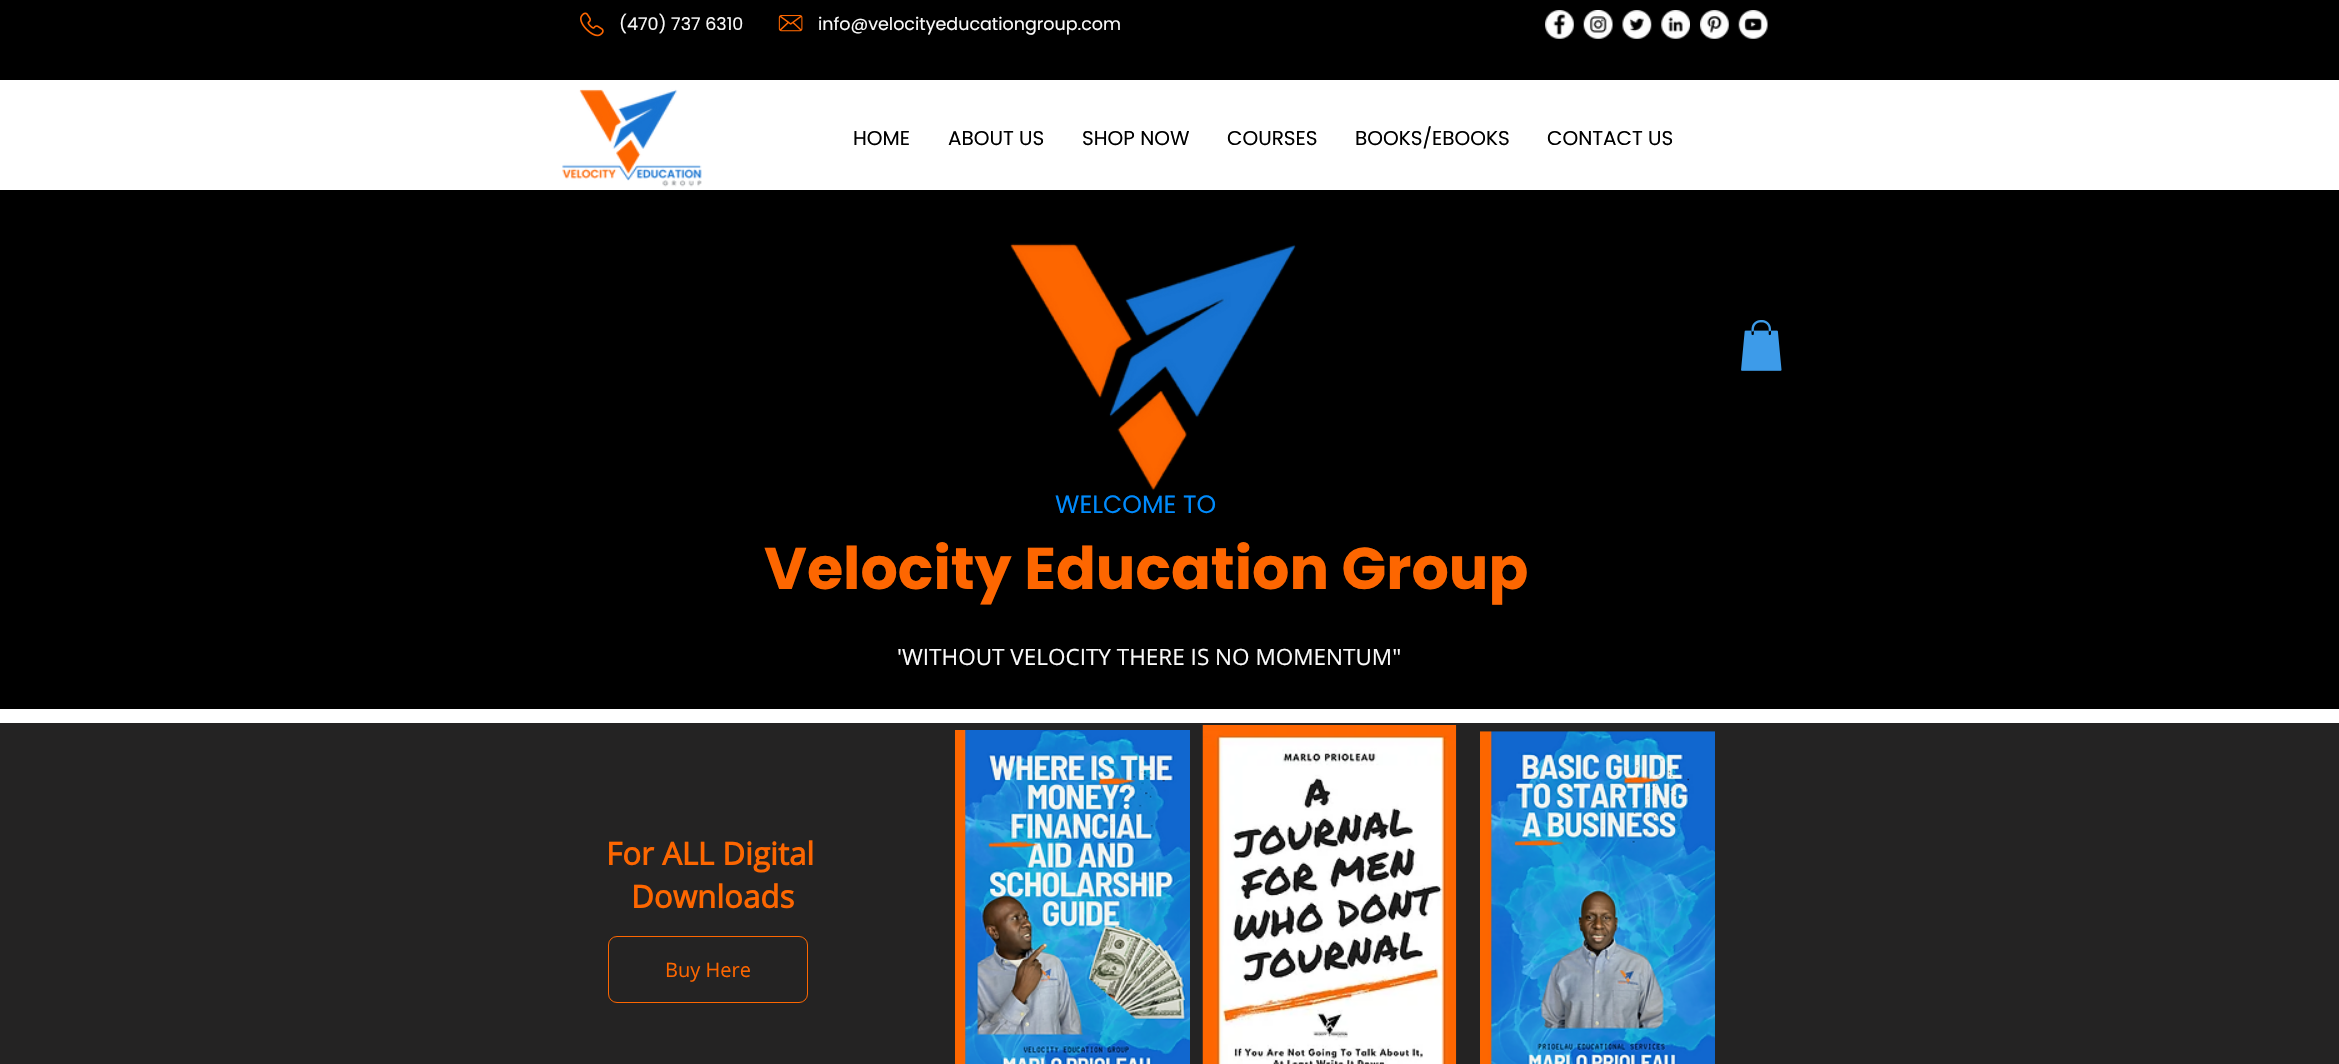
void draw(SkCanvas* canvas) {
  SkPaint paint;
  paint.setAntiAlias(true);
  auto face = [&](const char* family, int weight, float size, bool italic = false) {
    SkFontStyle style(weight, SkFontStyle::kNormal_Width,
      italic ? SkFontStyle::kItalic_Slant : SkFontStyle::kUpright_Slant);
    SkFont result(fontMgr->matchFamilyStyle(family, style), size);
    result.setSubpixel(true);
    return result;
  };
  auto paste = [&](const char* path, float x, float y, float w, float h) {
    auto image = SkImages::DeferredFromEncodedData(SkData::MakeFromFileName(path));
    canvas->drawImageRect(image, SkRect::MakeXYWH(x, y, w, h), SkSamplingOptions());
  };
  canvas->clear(0xffffffff);
  paint.setColor(0xff000000);
  canvas->drawRect(SkRect::MakeXYWH(0, 0, 2339, 80), paint);
  paste("img/1.png", 580, 12, 24, 25);
  paste("img/2.png", 778, 15, 25, 17);
  paste("img/3.png", 1545, 10, 29, 29);
  paste("img/4.png", 1583, 10, 30, 29);
  paste("img/5.png", 1622, 10, 30, 29);
  paste("img/6.png", 1661, 10, 29, 29);
  paste("img/7.png", 1700, 10, 29, 29);
  paste("img/8.png", 1738, 10, 30, 29);
  paste("img/9.png", 562, 89, 140, 98);
  canvas->drawRect(SkRect::MakeXYWH(0, 190, 2339, 519), paint);
  paste("img/10.png", 1741, 320, 41, 51);
  paste("img/11.png", 1010, 243, 286, 248);
  paint.setColor(0xff242323);
  canvas->drawRect(SkRect::MakeXYWH(0, 723, 2339, 341), paint);
  paste("img/12.png", 955, 730, 235, 334);
  paste("img/13.png", 1202, 725, 255, 339);
  paste("img/14.png", 1480, 731, 235, 333);
  paint.setStroke(true);
  paint.setStrokeWidth(1);
  paint.setColor(0xfffd6600);
  canvas->drawRoundRect(SkRect::MakeXYWH(608.5f, 936.5f, 199, 66), 8.5f, 8.5f, paint);
  auto f0 = face("Poppins", 400, 17.5f);
  paint.setStroke(false);
  paint.setColor(0xfffafafa);
  canvas->drawString("(470) 737 6310", 619, 30, f0, paint);
  canvas->drawString("info@velocityeducationgroup.com", 818, 30, f0, paint);
  auto f1 = face("Poppins", 400, 20);
  paint.setColor(0xff000000);
  {
    const struct { const char* s; float x, y; } items[] = {
      {"HOME", 853, 145},
      {"ABOUT US", 948, 145},
      {"SHOP NOW", 1082, 145},
      {"COURSES", 1227, 145},
      {"BOOKS/EBOOKS", 1355, 145},
      {"CONTACT US", 1547, 145},
    };
    for (auto [s, x, y] : items) {
      canvas->drawString(s, x, y, f1, paint);
    }
  }
  auto f2 = face("Poppins", 400, 25);
  paint.setColor(0xff008afc);
  canvas->drawString("WELCOME TO", 1055, 513, f2, paint);
  auto f3 = face("Poppins", 700, 58.75f);
  paint.setColor(0xfffd6600);
  canvas->drawString("Velocity Education Group", 764, 589, f3, paint);
  auto f4 = face("Open Sans", 400, 22.5f);
  paint.setColor(0xfffafafa);
  canvas->drawString("'WITHOUT VELOCITY THERE IS NO MOMENTUM\"", 897, 665, f4, paint);
  auto f5 = face("Open Sans", 700, 31.25f);
  paint.setColor(0xfffd6600);
  canvas->drawString("For ALL Digital", 606, 865, f5, paint);
  canvas->drawString("Downloads", 631, 908, f5, paint);
  auto f6 = face("Open Sans", 400, 20);
  canvas->drawString("Buy Here", 665, 977, f6, paint);
}
